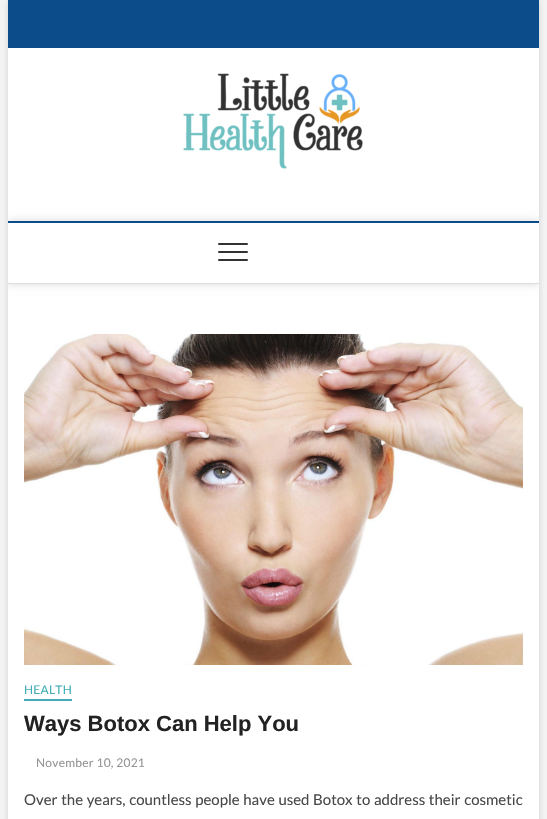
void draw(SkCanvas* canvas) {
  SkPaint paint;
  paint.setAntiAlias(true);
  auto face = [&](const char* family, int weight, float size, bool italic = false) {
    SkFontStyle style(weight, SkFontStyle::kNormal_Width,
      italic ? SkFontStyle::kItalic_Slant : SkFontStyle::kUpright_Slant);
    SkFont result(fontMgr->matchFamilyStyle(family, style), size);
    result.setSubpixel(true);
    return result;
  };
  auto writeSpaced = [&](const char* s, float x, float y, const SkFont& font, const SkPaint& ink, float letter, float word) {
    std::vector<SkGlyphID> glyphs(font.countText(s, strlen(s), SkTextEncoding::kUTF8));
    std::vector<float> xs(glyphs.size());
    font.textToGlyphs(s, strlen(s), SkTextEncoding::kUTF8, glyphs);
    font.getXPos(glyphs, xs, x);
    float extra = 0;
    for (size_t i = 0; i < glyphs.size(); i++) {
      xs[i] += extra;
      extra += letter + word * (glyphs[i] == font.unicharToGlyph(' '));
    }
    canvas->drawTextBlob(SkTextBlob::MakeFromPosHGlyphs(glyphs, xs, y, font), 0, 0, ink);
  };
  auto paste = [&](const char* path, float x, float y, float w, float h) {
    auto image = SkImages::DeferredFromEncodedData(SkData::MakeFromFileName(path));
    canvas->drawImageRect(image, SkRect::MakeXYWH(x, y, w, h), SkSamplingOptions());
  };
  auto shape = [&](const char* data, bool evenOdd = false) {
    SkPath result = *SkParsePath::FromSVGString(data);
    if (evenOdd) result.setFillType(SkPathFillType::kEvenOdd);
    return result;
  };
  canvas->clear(0xfff4f4f4);
  paint.setColor(0x26000000);
  paint.setMaskFilter(SkMaskFilter::MakeBlur(kNormal_SkBlurStyle, 3));
  canvas->drawRect(SkRect::MakeXYWH(8, 1, 531, 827), paint);
  paint.setMaskFilter(nullptr);
  paint.setColor(0xffffffff);
  canvas->drawRect(SkRect::MakeXYWH(8, 48, 531, 771), paint);
  paint.setColor(0xff0c4c8a);
  canvas->drawRect(SkRect::MakeXYWH(8, 0, 531, 48), paint);
  paste("img/1.png", 183, 73, 180, 96);
  canvas->save();
  canvas->clipRect(SkRect::MakeXYWH(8, 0, 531, 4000));
  canvas->clipPath(shape("M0 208H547V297H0ZM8 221H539V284H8Z", true), true);
  paint.setColor(0x26000000);
  paint.setMaskFilter(SkMaskFilter::MakeBlur(kNormal_SkBlurStyle, 4));
  canvas->drawRect(SkRect::MakeXYWH(8, 221, 531, 63), paint);
  paint.setMaskFilter(nullptr);
  canvas->restore();
  paint.setColor(0xff0c4c8a);
  canvas->drawRect(SkRect::MakeXYWH(8, 221, 531, 2), paint);
  paint.setColor(0xffdddddd);
  canvas->drawRect(SkRect::MakeXYWH(8, 283, 531, 1), paint);
  paint.setColor(0xff333333);
  canvas->drawRoundRect(SkRect::MakeXYWH(218, 251, 30, 2), 1, 1, paint);
  canvas->drawRoundRect(SkRect::MakeXYWH(218, 243, 30, 2), 1, 1, paint);
  canvas->drawRoundRect(SkRect::MakeXYWH(218, 259, 30, 2), 1, 1, paint);
  paste("img/2.png", 24, 334, 499, 331);
  paint.setColor(0xff42adb6);
  canvas->drawRect(SkRect::MakeXYWH(24, 699, 48, 2), paint);
  auto f0 = face("Lato", 400, 12);
  writeSpaced("HEALTH", 24, 694, f0, paint, 0.25f, 0);
  auto f1 = face("Liberation Sans", 700, 22);
  paint.setColor(0xff222222);
  canvas->drawString("Ways Botox Can Help You", 24, 731, f1, paint);
  paint.setColor(0xff949494);
  writeSpaced("November 10, 2021", 36, 767, f0, paint, 0.25f, 0);
  auto f2 = face("Lato", 400, 15);
  paint.setColor(0xff484848);
  writeSpaced("Over the years, countless people have used Botox to address their cosmetic", 24, 805, f2, paint, 0, 0.75f);
}
